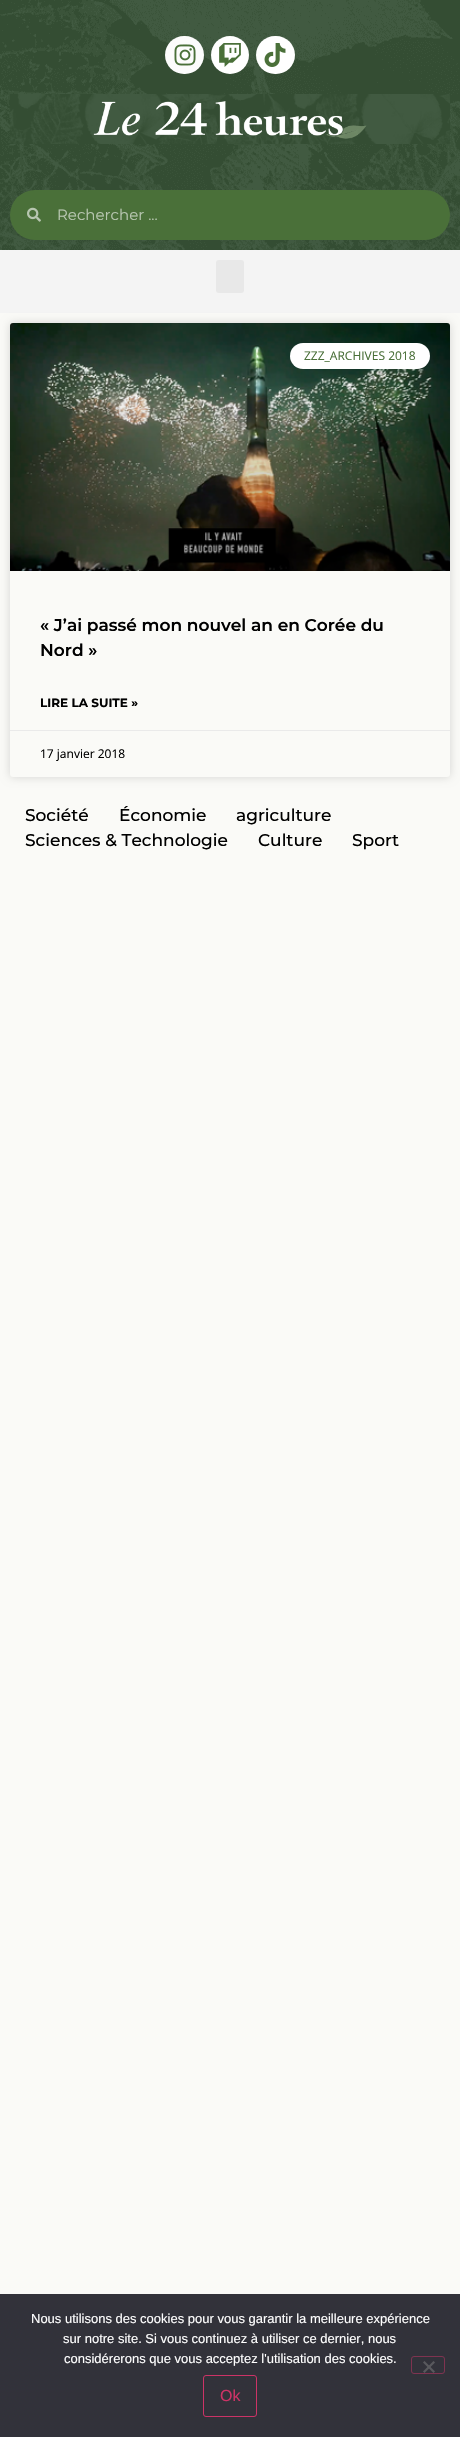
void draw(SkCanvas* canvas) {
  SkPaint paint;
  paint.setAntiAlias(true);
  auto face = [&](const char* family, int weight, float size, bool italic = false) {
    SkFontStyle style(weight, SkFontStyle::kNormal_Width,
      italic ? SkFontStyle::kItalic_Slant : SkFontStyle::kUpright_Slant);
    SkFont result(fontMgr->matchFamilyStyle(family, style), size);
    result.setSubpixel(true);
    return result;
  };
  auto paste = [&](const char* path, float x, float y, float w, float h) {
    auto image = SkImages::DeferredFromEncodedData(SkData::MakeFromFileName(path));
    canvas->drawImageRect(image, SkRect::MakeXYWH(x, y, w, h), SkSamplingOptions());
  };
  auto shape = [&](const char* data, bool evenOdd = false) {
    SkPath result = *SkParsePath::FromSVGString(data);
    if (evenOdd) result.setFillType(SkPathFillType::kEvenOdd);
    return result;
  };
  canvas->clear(0xfffafaf7);
  paint.setColor(0xfff4f4f4);
  canvas->drawRect(SkRect::MakeXYWH(0, 250, 460, 63), paint);
  paste("img/1.png", 0, 0, 460, 250);
  paint.setColor(0xfffcfcfc);
  canvas->drawRoundRect(SkRect::MakeXYWH(165, 36, 39, 38), 19, 19, paint);
  paste("img/2.png", 174, 44, 22, 22);
  paint.setColor(0xffffffff);
  canvas->drawCircle(230, 55, 19, paint);
  paste("img/3.png", 219, 43, 22, 24);
  canvas->drawRoundRect(SkRect::MakeXYWH(256, 36, 39, 38), 19, 19, paint);
  paste("img/4.png", 264, 43, 22, 24);
  paste("img/5.png", 10, 94, 440, 50);
  paste("img/6.png", 93, 101, 274, 38);
  paint.setColor(0xff4a7039);
  canvas->drawRoundRect(SkRect::MakeXYWH(10, 190, 440, 50), 25, 25, paint);
  paste("img/7.png", 27, 207, 14, 15);
  paint.setColor(0xffe8e8e8);
  canvas->drawRoundRect(SkRect::MakeXYWH(216, 260, 28, 33), 3, 3, paint);
  paint.setColor(0x26000000);
  paint.setMaskFilter(SkMaskFilter::MakeBlur(kNormal_SkBlurStyle, 5));
  canvas->drawRoundRect(SkRect::MakeXYWH(10, 323, 440, 454), 3, 3, paint);
  paint.setMaskFilter(nullptr);
  paint.setColor(0xfffafaf7);
  canvas->drawRoundRect(SkRect::MakeXYWH(10, 323, 440, 454), 3, 3, paint);
  paste("img/8.png", 10, 323, 440, 248);
  {
    const SkColor colors[] = {0x59000000, 0x00000000};
    const float stops[] = {0, 0.75f};
    const SkPoint ends[] = {{230, 571}, {230, 323}};
    paint.setShader(SkGradientShader::MakeLinear(ends, colors, stops, 2, SkTileMode::kClamp));
    paint.setAlpha(255);
  }
  canvas->drawRect(SkRect::MakeXYWH(10, 396, 440, 175), paint);
  paint.setShader(nullptr);
  paint.setColor(0xffffffff);
  canvas->drawRoundRect(SkRect::MakeXYWH(290, 343, 140, 26), 13, 13, paint);
  paint.setColor(0xffeaeaea);
  canvas->drawRect(SkRect::MakeXYWH(10, 730, 440, 1), paint);
  paint.setColor(0xff32323a);
  canvas->drawRect(SkRect::MakeXYWH(0, 2294, 460, 143), paint);
  paint.setStroke(true);
  paint.setStrokeWidth(1);
  paint.setColor(0xff7f3350);
  canvas->drawRoundRect(SkRect::MakeXYWH(411.5f, 2356.5f, 33, 17), 2.5f, 2.5f, paint);
  paint.setStroke(false);
  paint.setColor(0xff59595d);
  canvas->drawPath(shape("M433.5 2361L435 2362.5L424.5 2373L423 2371.5Z"), paint);
  canvas->drawPath(shape("M423 2362.5L424.5 2361L435 2371.5L433.5 2373Z"), paint);
  paint.setStroke(true);
  paint.setColor(0xffcc3366);
  canvas->drawRoundRect(SkRect::MakeXYWH(203.5f, 2375.5f, 53, 41), 2.5f, 2.5f, paint);
  auto f0 = face("Montserrat", 400, 15);
  paint.setStroke(false);
  paint.setColor(0xffb7c6b0);
  canvas->drawString("Rechercher ...", 57, 220, f0, paint);
  auto f1 = face("Open Sans", 400, 12);
  paint.setColor(0xff4a7039);
  canvas->drawString("ZZZ_ARCHIVES 2018", 304, 360, f1, paint);
  auto f2 = face("Montserrat", 600, 17);
  paint.setColor(0xff000000);
  canvas->drawString("« J’ai passé mon nouvel an en Corée du", 40, 631, f2, paint);
  canvas->drawString("Nord »", 40, 656, f2, paint);
  auto f3 = face("Montserrat", 700, 12);
  canvas->drawString("LIRE LA SUITE »", 40, 707, f3, paint);
  canvas->drawString("17 janvier 2018", 40, 758, f1, paint);
  auto f4 = face("Montserrat", 500, 17);
  {
    const struct { const char* s; float x, y; } items[] = {
      {"Société", 25, 821},
      {"Économie", 119, 821},
      {"agriculture", 236, 821},
      {"Sciences & Technologie", 25, 846},
      {"Culture", 258, 846},
      {"Sport", 352, 846},
    };
    for (auto [s, x, y] : items) {
      canvas->drawString(s, x, y, f4, paint);
    }
  }
  auto f5 = face("Liberation Sans", 400, 13);
  paint.setColor(0xffffffff);
  {
    const struct { const char* s; float x, y; } items[] = {
      {"Nous utilisons des cookies pour vous garantir la meilleure expérience", 31, 2323},
      {"sur notre site. Si vous continuez à utiliser ce dernier, nous", 63, 2343},
      {"considérerons que vous acceptez l'utilisation des cookies.", 64, 2363},
    };
    for (auto [s, x, y] : items) {
      canvas->drawString(s, x, y, f5, paint);
    }
  }
  auto f6 = face("Liberation Sans", 400, 16);
  paint.setColor(0xffcc3366);
  canvas->drawString("Ok", 220, 2401, f6, paint);
}
